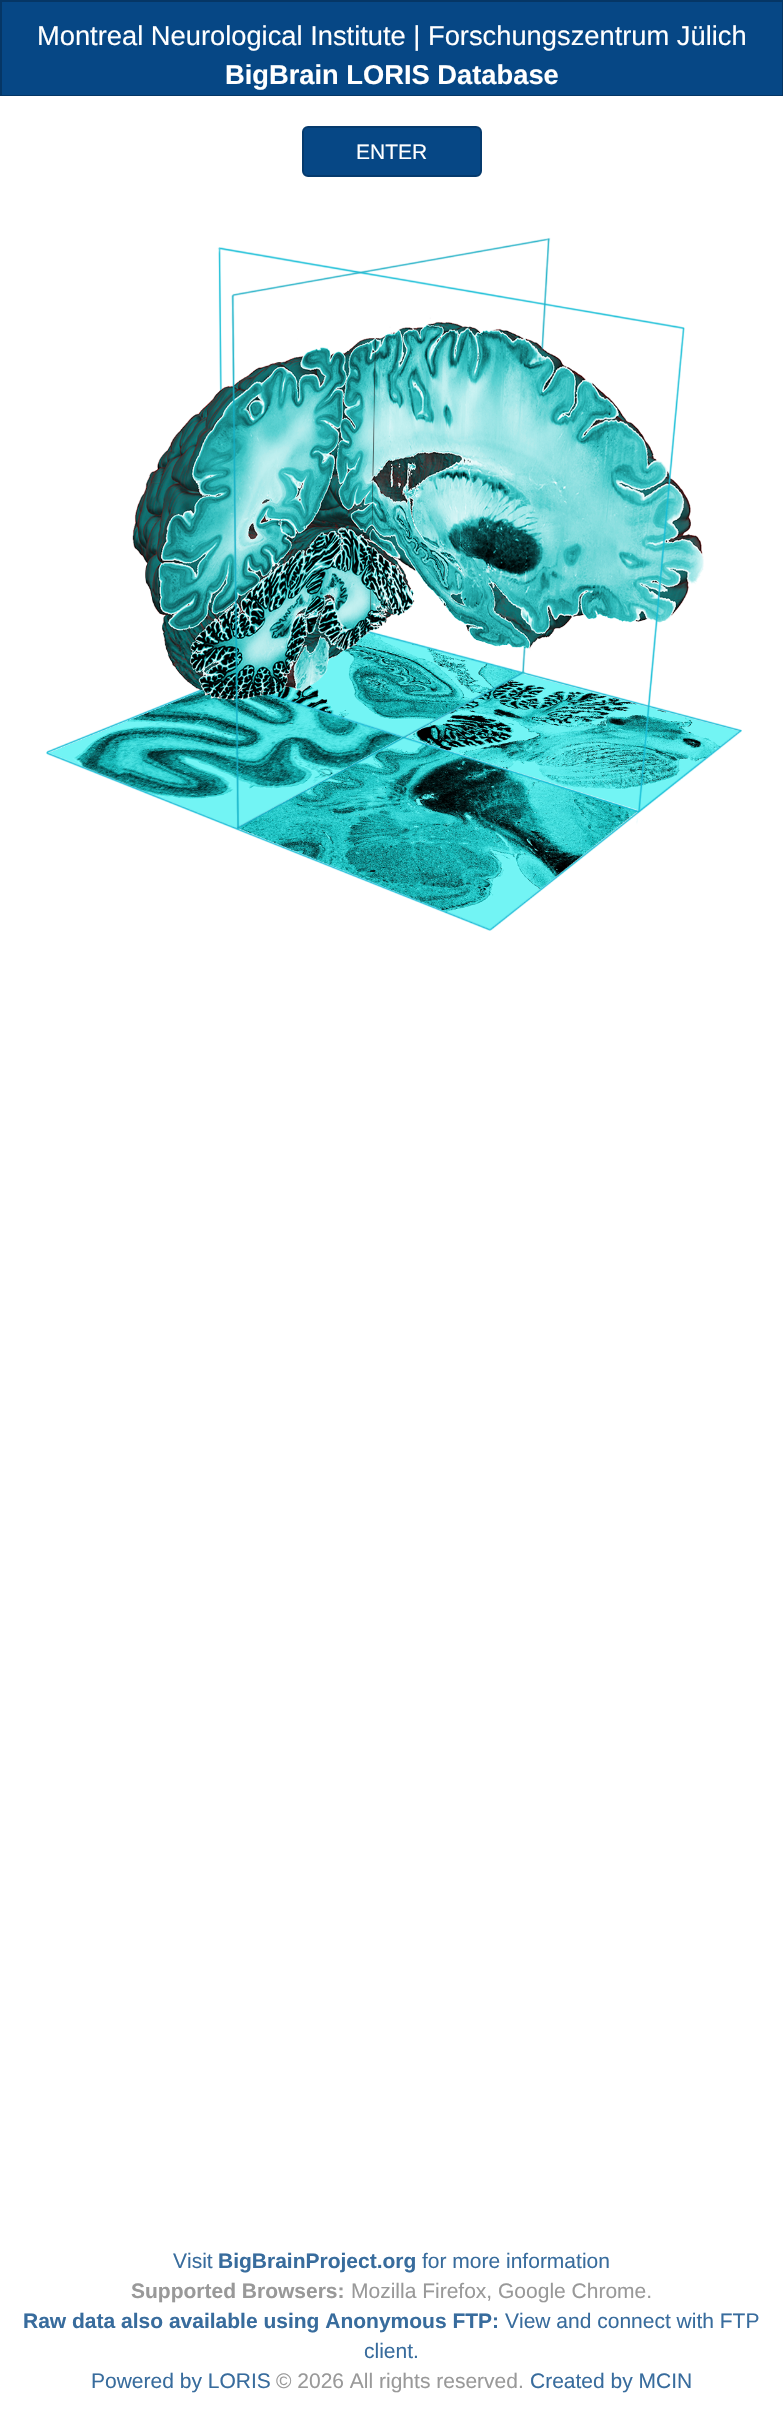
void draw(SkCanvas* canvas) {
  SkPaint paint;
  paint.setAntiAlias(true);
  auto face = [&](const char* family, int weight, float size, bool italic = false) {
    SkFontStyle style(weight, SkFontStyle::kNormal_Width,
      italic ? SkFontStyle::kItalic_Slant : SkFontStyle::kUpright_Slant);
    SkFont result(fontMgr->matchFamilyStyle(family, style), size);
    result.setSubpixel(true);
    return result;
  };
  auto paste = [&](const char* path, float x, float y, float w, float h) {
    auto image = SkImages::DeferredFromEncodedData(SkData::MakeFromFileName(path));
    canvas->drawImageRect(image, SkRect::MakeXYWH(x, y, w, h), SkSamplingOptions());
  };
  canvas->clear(0xffffffff);
  paint.setStroke(true);
  paint.setStrokeWidth(2);
  paint.setColor(0xff053665);
  canvas->drawRect(SkRect::MakeXYWH(1, 1, 781, 94), paint);
  paint.setStroke(false);
  paint.setColor(0xff064785);
  canvas->drawRect(SkRect::MakeXYWH(2, 2, 780, 93), paint);
  canvas->drawRoundRect(SkRect::MakeXYWH(303, 127, 178, 49), 5, 5, paint);
  paint.setStroke(true);
  paint.setColor(0xff053a6d);
  canvas->drawRoundRect(SkRect::MakeXYWH(303, 127, 178, 49), 5, 5, paint);
  paste("img/1.png", 46, 237, 696, 694);
  auto f0 = face("Liberation Sans", 400, 27.3f);
  paint.setStroke(false);
  paint.setColor(0xffffffff);
  canvas->drawString("Montreal Neurological Institute | Forschungszentrum Jülich", 37, 45, f0, paint);
  auto f1 = face("Liberation Sans", 700, 27.3f);
  canvas->drawString("BigBrain LORIS Database", 225, 84, f1, paint);
  auto f2 = face("Liberation Sans", 400, 21);
  canvas->drawString("ENTER", 356, 159, f2, paint);
  paint.setColor(0xff386c9d);
  canvas->drawString("Visit", 173, 2268, f2, paint);
  auto f3 = face("Liberation Sans", 700, 21);
  canvas->drawString("BigBrainProject.org", 218, 2268, f3, paint);
  canvas->drawString("for more information", 422, 2268, f2, paint);
  paint.setColor(0xff999999);
  canvas->drawString("Supported Browsers:", 131, 2298, f3, paint);
  canvas->drawString("Mozilla Firefox, Google Chrome.", 351, 2298, f2, paint);
  paint.setColor(0xff386c9d);
  canvas->drawString("Raw data also available using Anonymous FTP:", 23, 2328, f3, paint);
  {
    const struct { const char* s; float x, y; } items[] = {
      {"View and connect with FTP", 505, 2328},
      {"client.", 364, 2358},
      {"Powered by LORIS", 91, 2388},
    };
    for (auto [s, x, y] : items) {
      canvas->drawString(s, x, y, f2, paint);
    }
  }
  paint.setColor(0xff999999);
  canvas->drawString("© 2026 All rights reserved.", 276, 2388, f2, paint);
  paint.setColor(0xff386c9d);
  canvas->drawString("Created by MCIN", 530, 2388, f2, paint);
}
